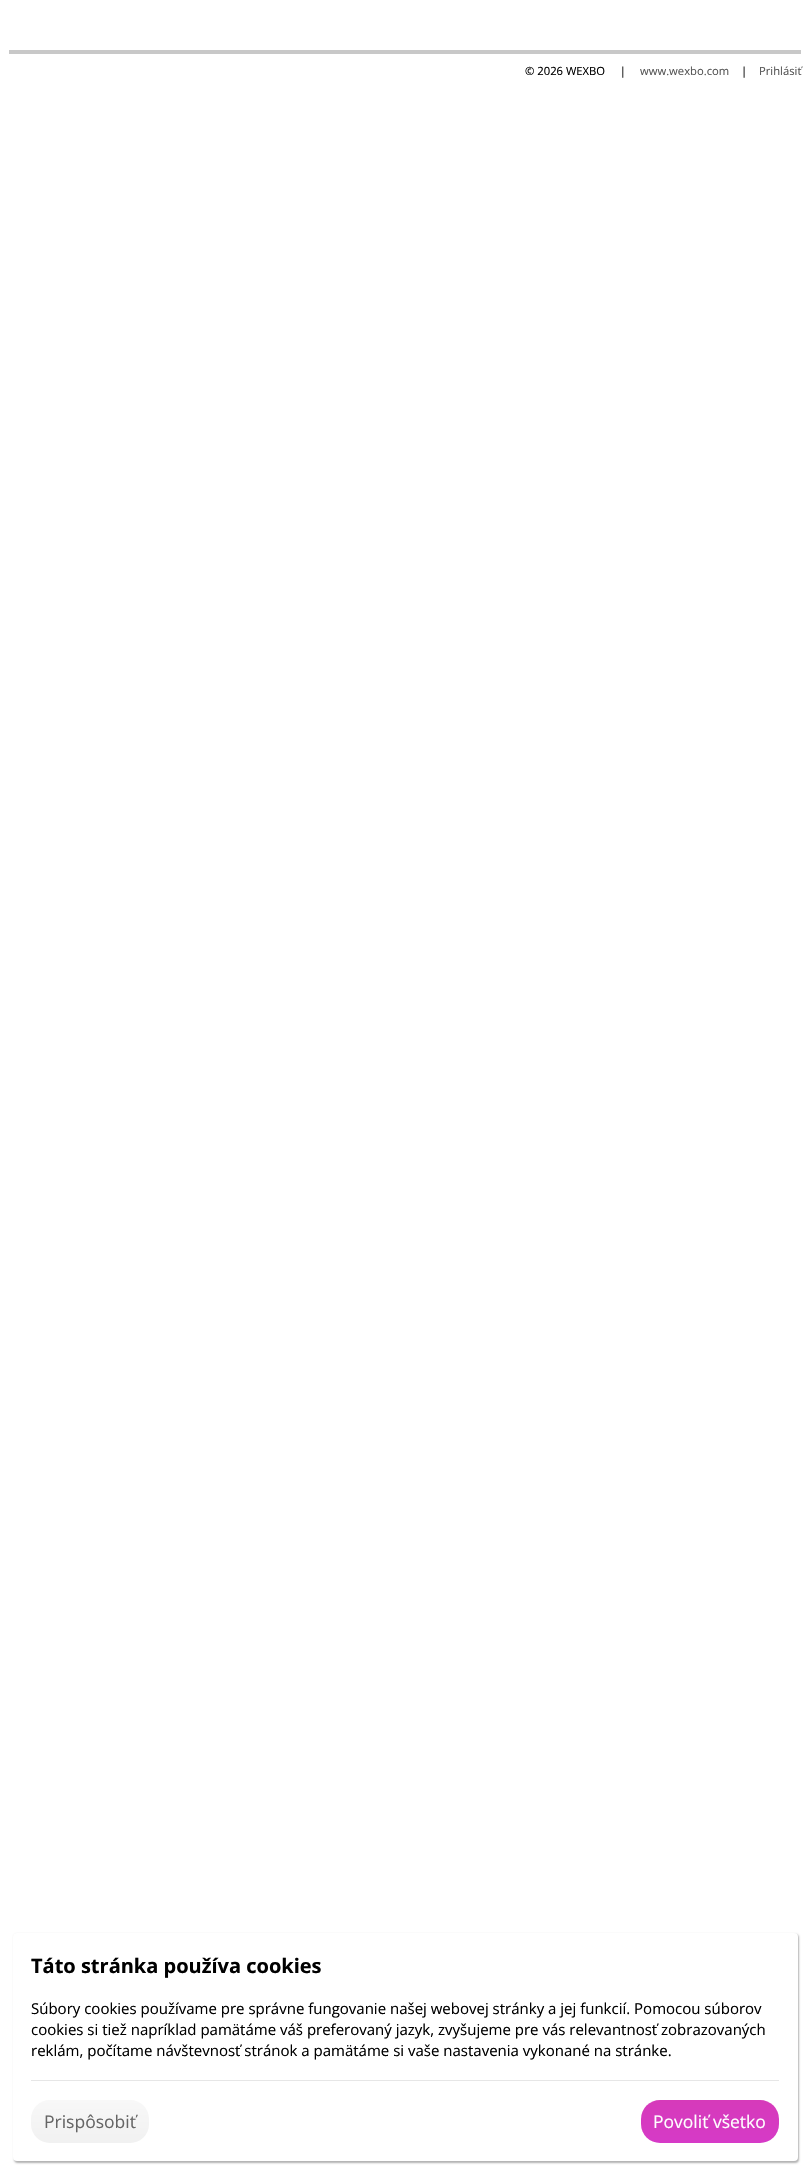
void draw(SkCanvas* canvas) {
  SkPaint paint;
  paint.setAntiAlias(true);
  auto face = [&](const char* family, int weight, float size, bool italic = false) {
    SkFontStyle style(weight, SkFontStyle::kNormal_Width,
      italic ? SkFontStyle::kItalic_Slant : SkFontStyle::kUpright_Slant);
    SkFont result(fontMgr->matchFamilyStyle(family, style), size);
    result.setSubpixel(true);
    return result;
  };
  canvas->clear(0xffffffff);
  paint.setColor(0xffc8c8c8);
  canvas->drawRect(SkRect::MakeXYWH(9, 50, 792, 4), paint);
  paint.setColor(0x4d000000);
  paint.setMaskFilter(SkMaskFilter::MakeBlur(kNormal_SkBlurStyle, 1));
  canvas->drawRoundRect(SkRect::MakeXYWH(14, 1934, 785, 229), 4, 4, paint);
  paint.setMaskFilter(nullptr);
  paint.setColor(0xffffffff);
  canvas->drawRoundRect(SkRect::MakeXYWH(13, 1933, 785, 228), 4, 4, paint);
  paint.setColor(0xffe6e6e6);
  canvas->drawRect(SkRect::MakeXYWH(31, 2080, 748, 1), paint);
  {
    const SkColor colors[] = {0xfff8f8f8, 0xfff1f1f1};
    const float stops[] = {0, 1};
    const SkPoint ends[] = {{90, 2100}, {90, 2143}};
    paint.setShader(SkGradientShader::MakeLinear(ends, colors, stops, 2, SkTileMode::kClamp));
    paint.setAlpha(255);
  }
  canvas->drawRoundRect(SkRect::MakeXYWH(31, 2100, 118, 43), 19, 19, paint);
  {
    const SkColor colors[] = {0xffd63aba, 0xffd63ac7};
    const float stops[] = {0, 1};
    const SkPoint ends[] = {{710, 2100}, {710, 2143}};
    paint.setShader(SkGradientShader::MakeLinear(ends, colors, stops, 2, SkTileMode::kClamp));
    paint.setAlpha(255);
  }
  canvas->drawRoundRect(SkRect::MakeXYWH(641, 2100, 138, 43), 19, 19, paint);
  auto f0 = face("Open Sans", 400, 11.25f);
  paint.setShader(nullptr);
  paint.setColor(0xff000000);
  canvas->drawString("© 2026 WEXBO     |", 525, 75, f0, paint);
  paint.setColor(0xff555555);
  canvas->drawString("www.wexbo.com", 640, 75, f0, paint);
  paint.setColor(0xff000000);
  canvas->drawString("|", 741, 75, f0, paint);
  paint.setColor(0xff555555);
  canvas->drawString("Prihlásiť", 759, 75, f0, paint);
  auto f1 = face("Open Sans", 700, 20);
  paint.setColor(0xff000000);
  canvas->drawString("Táto stránka používa cookies", 31, 1973, f1, paint);
  auto f2 = face("Open Sans", 400, 15);
  {
    const struct { const char* s; float x, y; } items[] = {
      {"Súbory cookies používame pre správne fungovanie našej webovej stránky a jej funkcií. Pomocou súborov", 31, 2014},
      {"cookies si tiež napríklad pamätáme váš preferovaný jazyk, zvyšujeme pre vás relevantnosť zobrazovaných", 31, 2035},
      {"reklám, počítame návštevnosť stránok a pamätáme si vaše nastavenia vykonané na stránke.", 31, 2056},
    };
    for (auto [s, x, y] : items) {
      canvas->drawString(s, x, y, f2, paint);
    }
  }
  auto f3 = face("Open Sans", 400, 17.5f);
  paint.setColor(0xff666666);
  canvas->drawString("Prispôsobiť", 44, 2128, f3, paint);
  paint.setColor(0xffffffff);
  canvas->drawString("Povoliť všetko", 653, 2128, f3, paint);
}
